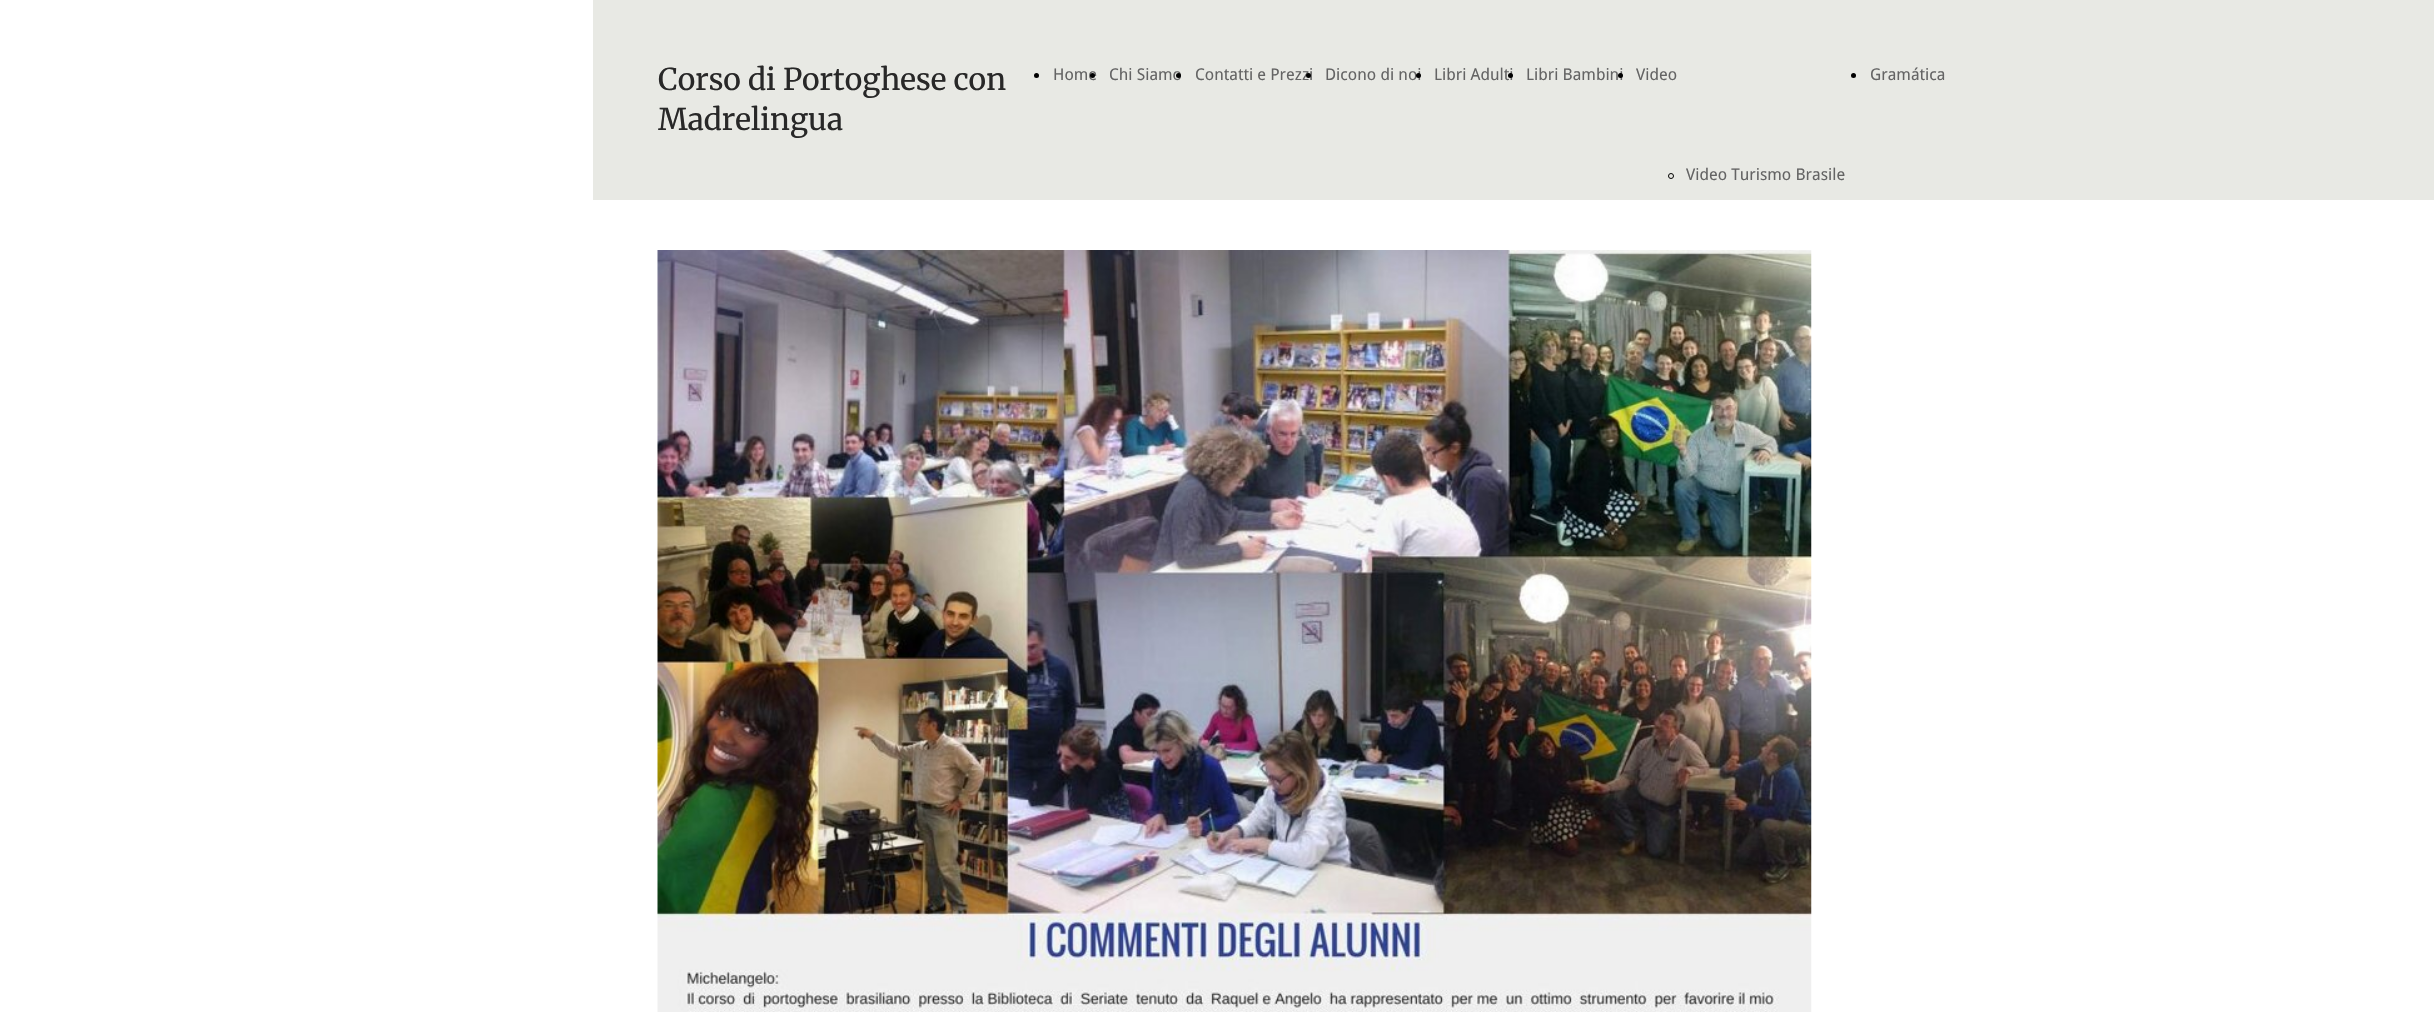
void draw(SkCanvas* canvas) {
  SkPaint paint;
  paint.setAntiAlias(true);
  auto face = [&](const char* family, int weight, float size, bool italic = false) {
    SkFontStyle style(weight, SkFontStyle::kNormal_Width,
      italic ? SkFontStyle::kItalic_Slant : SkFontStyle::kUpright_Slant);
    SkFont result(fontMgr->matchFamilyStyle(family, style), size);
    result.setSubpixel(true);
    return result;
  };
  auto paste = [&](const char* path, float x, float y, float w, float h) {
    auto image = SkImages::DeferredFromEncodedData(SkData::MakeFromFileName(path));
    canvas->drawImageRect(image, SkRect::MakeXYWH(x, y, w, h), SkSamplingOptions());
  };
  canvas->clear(0xffffffff);
  paint.setColor(0xffe8e9e4);
  canvas->drawRect(SkRect::MakeXYWH(593, 0, 1841, 200), paint);
  paint.setColor(0xff000000);
  canvas->drawCircle(1036.5f, 75.5f, 2.5f, paint);
  paint.setStroke(true);
  paint.setStrokeWidth(1);
  canvas->drawCircle(1671, 176, 2.5f, paint);
  paint.setStroke(false);
  canvas->drawCircle(1853.5f, 75.5f, 2.5f, paint);
  paste("img/1.png", 657, 250, 1155, 762);
  auto f0 = face("Merriweather", 400, 30);
  paint.setColor(0xff282828);
  canvas->drawString("Corso di Portoghese con", 658, 90, f0, paint);
  canvas->drawString("Madrelingua", 658, 130, f0, paint);
  auto f1 = face("Droid Sans", 400, 16.25f);
  paint.setColor(0xff646464);
  canvas->drawString("Home", 1053, 80, f1, paint);
  paint.setColor(0xff000000);
  canvas->drawCircle(1092.5f, 75.5f, 2.5f, paint);
  paint.setColor(0xff646464);
  canvas->drawString("Chi Siamo", 1109, 80, f1, paint);
  paint.setColor(0xff000000);
  canvas->drawCircle(1178.5f, 75.5f, 2.5f, paint);
  paint.setColor(0xff646464);
  canvas->drawString("Contatti e Prezzi", 1195, 80, f1, paint);
  paint.setColor(0xff000000);
  canvas->drawCircle(1308.5f, 75.5f, 2.5f, paint);
  paint.setColor(0xff646464);
  canvas->drawString("Dicono di noi", 1325, 80, f1, paint);
  paint.setColor(0xff000000);
  canvas->drawCircle(1418.5f, 75.5f, 2.5f, paint);
  paint.setColor(0xff646464);
  canvas->drawString("Libri Adulti", 1434, 80, f1, paint);
  paint.setColor(0xff000000);
  canvas->drawCircle(1510.5f, 75.5f, 2.5f, paint);
  paint.setColor(0xff646464);
  canvas->drawString("Libri Bambini", 1526, 80, f1, paint);
  paint.setColor(0xff000000);
  canvas->drawCircle(1620.5f, 75.5f, 2.5f, paint);
  paint.setColor(0xff646464);
  {
    const struct { const char* s; float x, y; } items[] = {
      {"Video", 1636, 80},
      {"Video Turismo Brasile", 1686, 180},
      {"Gramática", 1870, 80},
    };
    for (auto [s, x, y] : items) {
      canvas->drawString(s, x, y, f1, paint);
    }
  }
}
